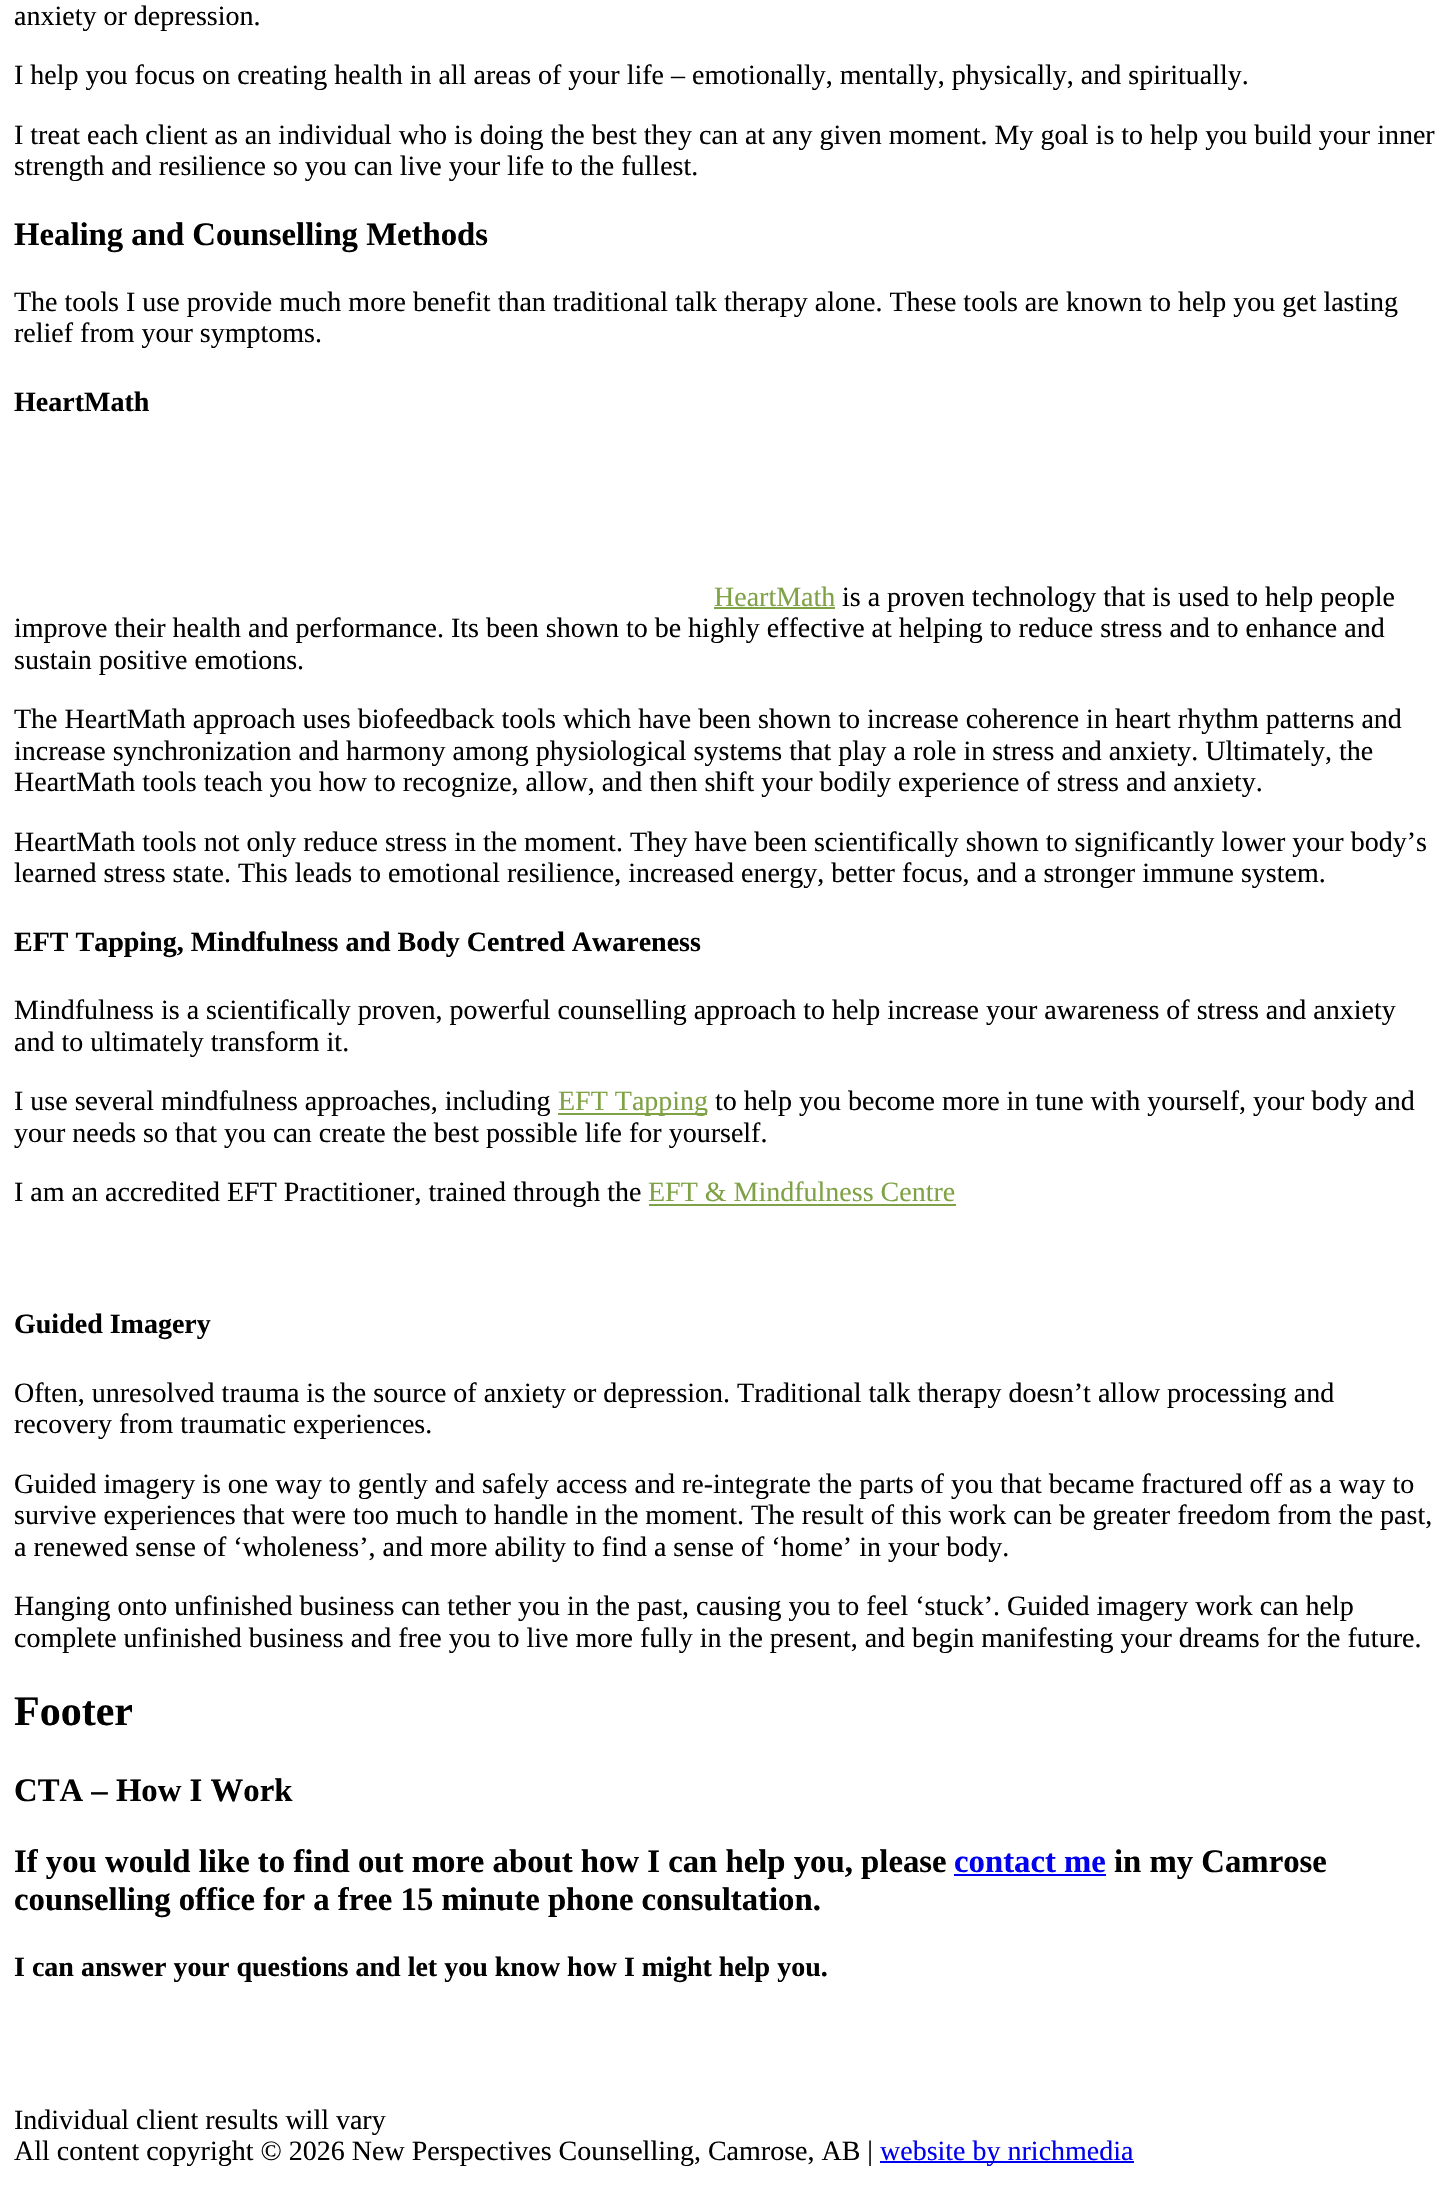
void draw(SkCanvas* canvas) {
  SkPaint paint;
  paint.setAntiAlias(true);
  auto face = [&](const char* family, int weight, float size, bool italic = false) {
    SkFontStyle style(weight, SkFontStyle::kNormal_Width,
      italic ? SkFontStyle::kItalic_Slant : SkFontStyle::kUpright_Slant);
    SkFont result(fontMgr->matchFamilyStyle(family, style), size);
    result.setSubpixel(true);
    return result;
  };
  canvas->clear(0xffffffff);
  {
    const struct { float x, y, w, h; SkColor color; } items[] = {
      {714, 607, 121, 2, 0xff7fa246},
      {558, 1113, 149, 2, 0xff7fa246},
      {649, 1204, 307, 2, 0xff7fa246},
      {954, 1874, 152, 2, 0xff0000ee},
      {880, 2161, 254, 2, 0xff0000ee},
    };
    for (auto [x, y, w, h, color] : items) {
      paint.setColor(color);
      canvas->drawRect(SkRect::MakeXYWH(x, y, w, h), paint);
    }
  }
  auto f0 = face("Liberation Serif", 400, 28);
  paint.setColor(0xff000000);
  {
    const struct { const char* s; float x, y; } items[] = {
      {"anxiety or depression.", 14, 25},
      {"I help you focus on creating health in all areas of your life – emotionally, mentally, physically, and spiritually.", 14, 84},
      {"I treat each client as an individual who is doing the best they can at any given moment. My goal is to help you build your inner", 14, 144},
      {"strength and resilience so you can live your life to the fullest.", 14, 175},
    };
    for (auto [s, x, y] : items) {
      canvas->drawString(s, x, y, f0, paint);
    }
  }
  auto f1 = face("Liberation Serif", 700, 32.75f);
  canvas->drawString("Healing and Counselling Methods", 14, 245, f1, paint);
  canvas->drawString("The tools I use provide much more benefit than traditional talk therapy alone. These tools are known to help you get lasting", 14, 311, f0, paint);
  canvas->drawString("relief from your symptoms.", 14, 342, f0, paint);
  auto f2 = face("Liberation Serif", 700, 28);
  canvas->drawString("HeartMath", 14, 411, f2, paint);
  paint.setColor(0xff7fa246);
  canvas->drawString("HeartMath", 714, 606, f0, paint);
  paint.setColor(0xff000000);
  {
    const struct { const char* s; float x, y; } items[] = {
      {"is a proven technology that is used to help people", 842, 606},
      {"improve their health and performance. Its been shown to be highly effective at helping to reduce stress and to enhance and", 14, 637},
      {"sustain positive emotions.", 14, 669},
      {"The HeartMath approach uses biofeedback tools which have been shown to increase coherence in heart rhythm patterns and", 14, 728},
      {"increase synchronization and harmony among physiological systems that play a role in stress and anxiety. Ultimately, the", 14, 760},
      {"HeartMath tools teach you how to recognize, allow, and then shift your bodily experience of stress and anxiety.", 14, 791},
      {"HeartMath tools not only reduce stress in the moment. They have been scientifically shown to significantly lower your body’s", 14, 851},
      {"learned stress state. This leads to emotional resilience, increased energy, better focus, and a stronger immune system.", 14, 882},
    };
    for (auto [s, x, y] : items) {
      canvas->drawString(s, x, y, f0, paint);
    }
  }
  canvas->drawString("EFT Tapping, Mindfulness and Body Centred Awareness", 14, 951, f2, paint);
  {
    const struct { const char* s; float x, y; } items[] = {
      {"Mindfulness is a scientifically proven, powerful counselling approach to help increase your awareness of stress and anxiety", 14, 1019},
      {"and to ultimately transform it.", 14, 1051},
      {"I use several mindfulness approaches, including", 14, 1110},
    };
    for (auto [s, x, y] : items) {
      canvas->drawString(s, x, y, f0, paint);
    }
  }
  paint.setColor(0xff7fa246);
  canvas->drawString("EFT Tapping", 558, 1110, f0, paint);
  paint.setColor(0xff000000);
  {
    const struct { const char* s; float x, y; } items[] = {
      {"to help you become more in tune with yourself, your body and", 715, 1110},
      {"your needs so that you can create the best possible life for yourself.", 14, 1142},
      {"I am an accredited EFT Practitioner, trained through the", 14, 1201},
    };
    for (auto [s, x, y] : items) {
      canvas->drawString(s, x, y, f0, paint);
    }
  }
  paint.setColor(0xff7fa246);
  canvas->drawString("EFT & Mindfulness Centre", 648, 1201, f0, paint);
  paint.setColor(0xff000000);
  canvas->drawString("Guided Imagery", 14, 1333, f2, paint);
  {
    const struct { const char* s; float x, y; } items[] = {
      {"Often, unresolved trauma is the source of anxiety or depression. Traditional talk therapy doesn’t allow processing and", 14, 1402},
      {"recovery from traumatic experiences.", 14, 1433},
      {"Guided imagery is one way to gently and safely access and re-integrate the parts of you that became fractured off as a way to", 14, 1493},
      {"survive experiences that were too much to handle in the moment. The result of this work can be greater freedom from the past,", 14, 1524},
      {"a renewed sense of ‘wholeness’, and more ability to find a sense of ‘home’ in your body.", 14, 1556},
      {"Hanging onto unfinished business can tether you in the past, causing you to feel ‘stuck’. Guided imagery work can help", 14, 1615},
      {"complete unfinished business and free you to live more fully in the present, and begin manifesting your dreams for the future.", 14, 1647},
    };
    for (auto [s, x, y] : items) {
      canvas->drawString(s, x, y, f0, paint);
    }
  }
  auto f3 = face("Liberation Serif", 700, 42);
  canvas->drawString("Footer", 14, 1725, f3, paint);
  canvas->drawString("CTA – How I Work", 14, 1801, f1, paint);
  canvas->drawString("If you would like to find out more about how I can help you, please", 14, 1872, f1, paint);
  paint.setColor(0xff0000ee);
  canvas->drawString("contact me", 954, 1872, f1, paint);
  paint.setColor(0xff000000);
  canvas->drawString("in my Camrose", 1114, 1872, f1, paint);
  canvas->drawString("counselling office for a free 15 minute phone consultation.", 14, 1910, f1, paint);
  canvas->drawString("I can answer your questions and let you know how I might help you.", 14, 1976, f2, paint);
  canvas->drawString("Individual client results will vary", 14, 2129, f0, paint);
  canvas->drawString("All content copyright © 2026 New Perspectives Counselling, Camrose, AB |", 14, 2160, f0, paint);
  paint.setColor(0xff0000ee);
  canvas->drawString("website by nrichmedia", 880, 2160, f0, paint);
}
